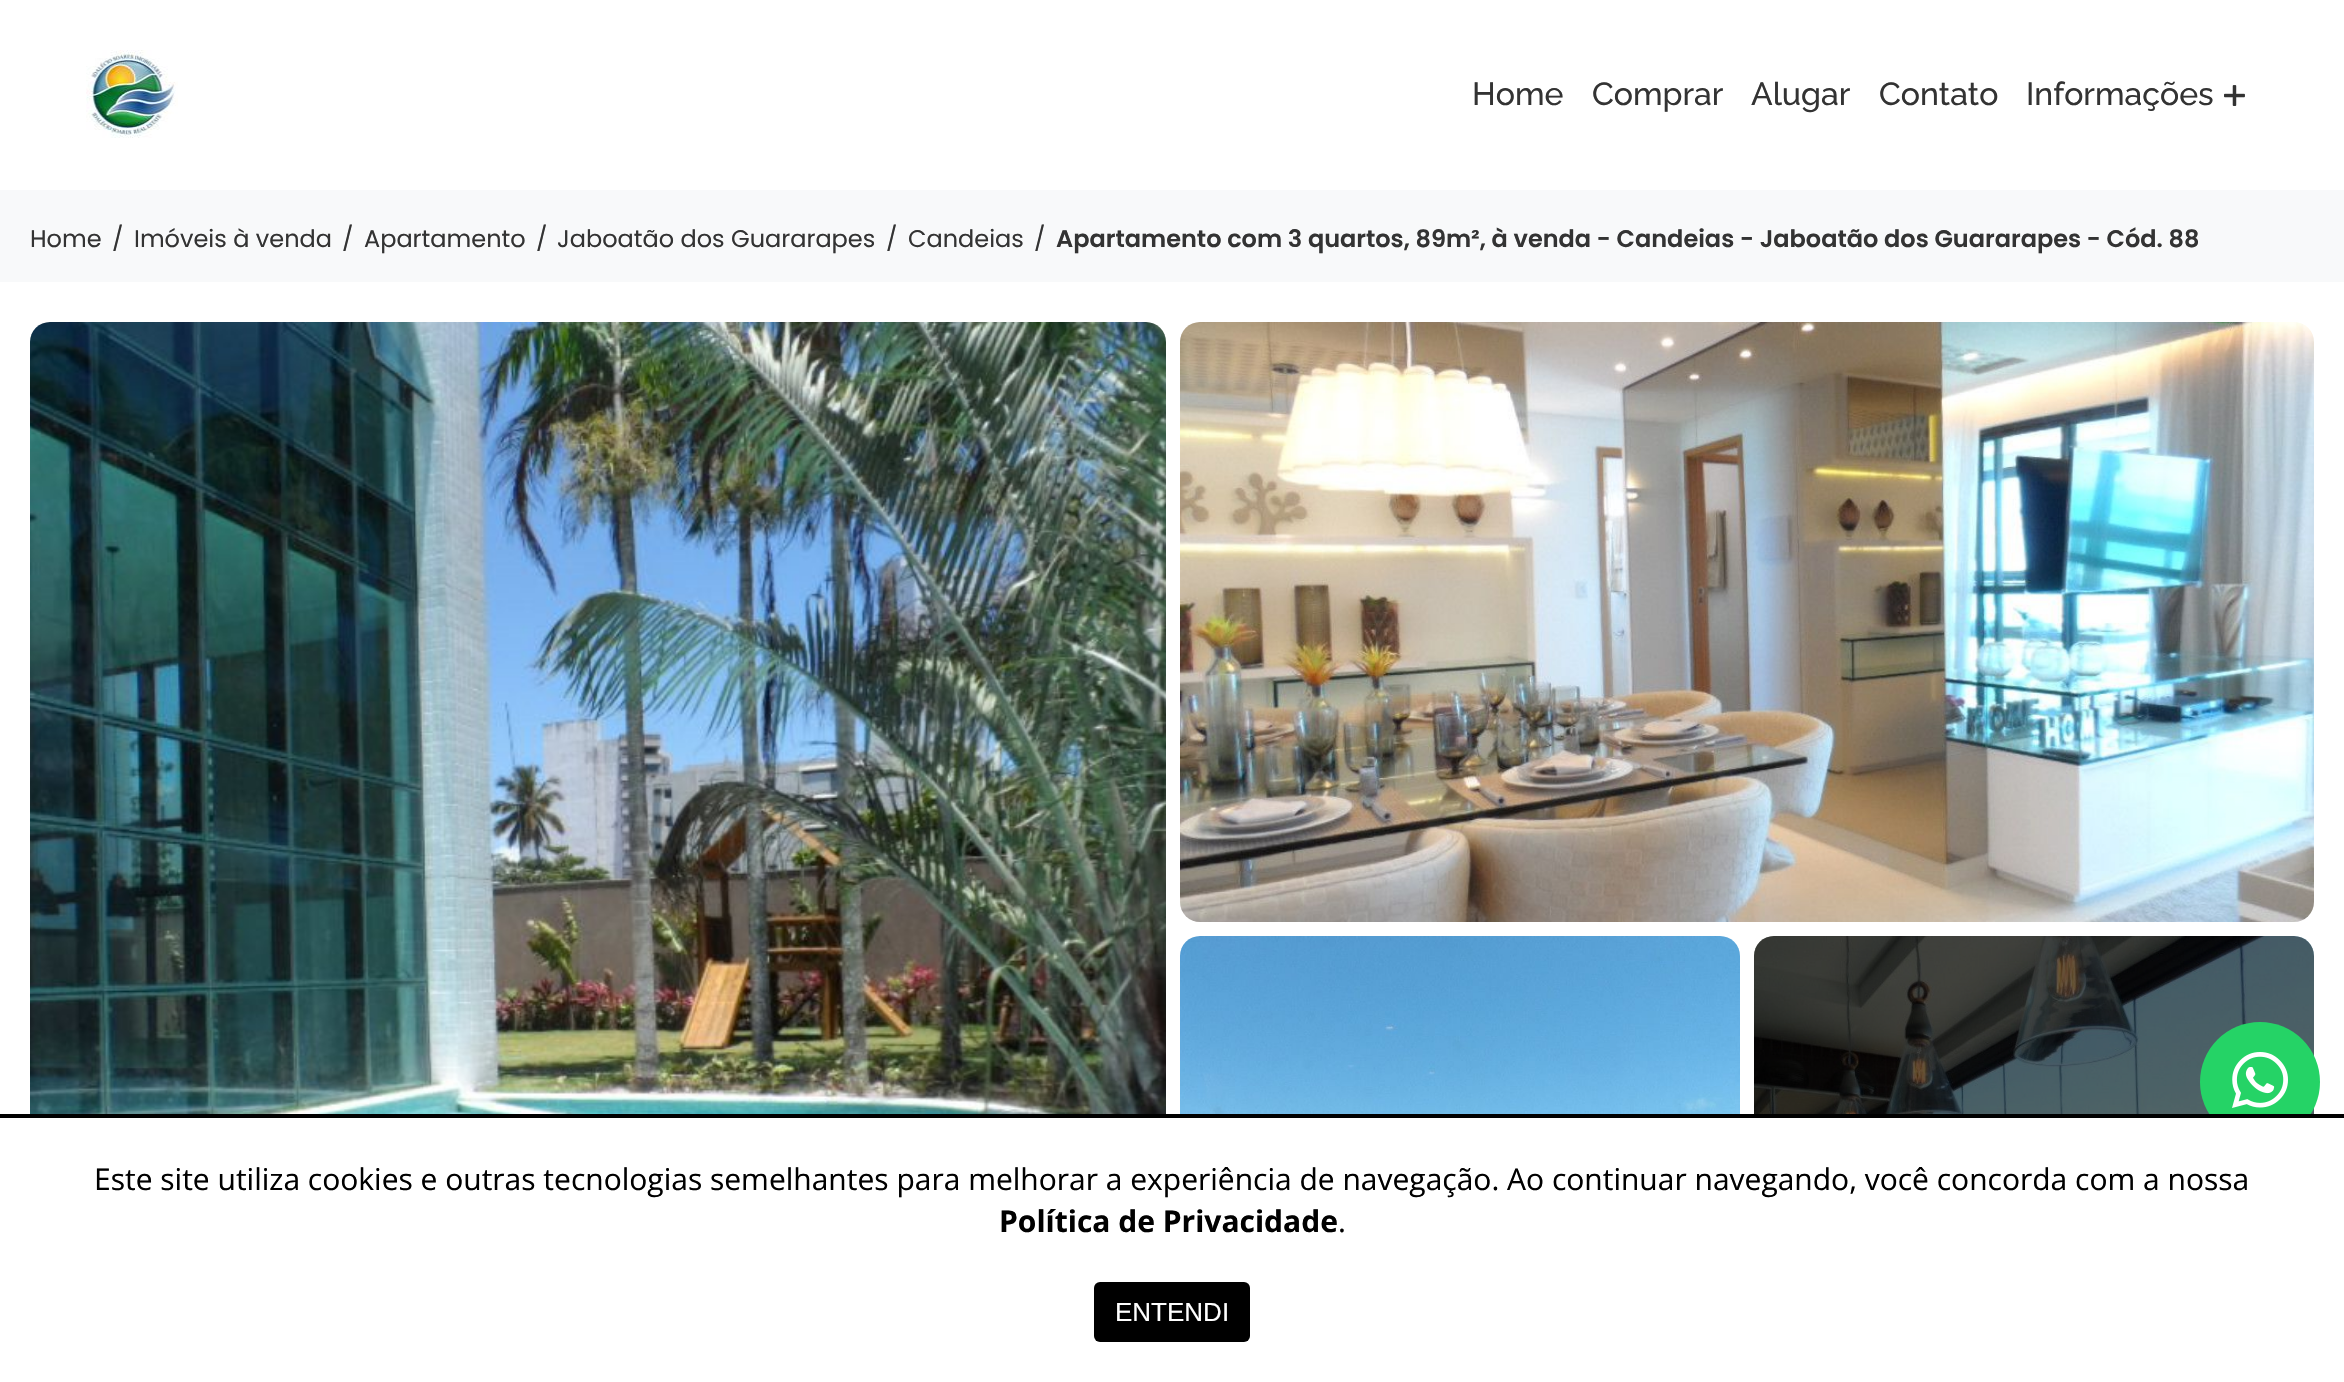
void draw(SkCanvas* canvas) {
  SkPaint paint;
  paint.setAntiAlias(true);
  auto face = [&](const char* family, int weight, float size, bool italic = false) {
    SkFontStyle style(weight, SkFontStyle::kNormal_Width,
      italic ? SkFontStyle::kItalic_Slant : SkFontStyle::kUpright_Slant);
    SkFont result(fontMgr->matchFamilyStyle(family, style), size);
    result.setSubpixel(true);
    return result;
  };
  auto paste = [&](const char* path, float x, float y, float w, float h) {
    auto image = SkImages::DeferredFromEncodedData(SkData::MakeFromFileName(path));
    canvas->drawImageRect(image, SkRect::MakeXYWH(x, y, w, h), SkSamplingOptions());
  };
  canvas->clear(0xffffffff);
  paste("img/1.png", 86, 50, 92, 88);
  paste("img/2.png", 2224, 85, 21, 21);
  paint.setColor(0xfff8f9fa);
  canvas->drawRect(SkRect::MakeXYWH(0, 190, 2344, 92), paint);
  paste("img/3.png", 30, 322, 1136, 792);
  paste("img/4.png", 1180, 322, 1134, 600);
  paste("img/5.png", 1180, 936, 560, 178);
  paste("img/6.png", 1754, 936, 560, 178);
  paint.setColor(0x99000000);
  canvas->drawRoundRect(SkRect::MakeXYWH(1754, 936, 560, 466), 20, 20, paint);
  paint.setColor(0xff25d366);
  canvas->drawCircle(2260, 1082, 60, paint);
  paste("img/7.png", 2232, 1052, 56, 56);
  paint.setColor(0xffffffff);
  canvas->drawRect(SkRect::MakeXYWH(1754, 1118, 560, 264), paint);
  paint.setColor(0xff000000);
  canvas->drawRect(SkRect::MakeXYWH(0, 1114, 2344, 4), paint);
  canvas->drawRoundRect(SkRect::MakeXYWH(1094, 1282, 156, 60), 6, 6, paint);
  auto f0 = face("Raleway", 500, 32);
  paint.setColor(0xff333333);
  {
    const struct { const char* s; float x, y; } items[] = {
      {"Home", 1472, 105},
      {"Comprar", 1592, 105},
      {"Alugar", 1751, 105},
      {"Contato", 1879, 105},
      {"Informações", 2026, 105},
    };
    for (auto [s, x, y] : items) {
      canvas->drawString(s, x, y, f0, paint);
    }
  }
  auto f1 = face("Poppins", 400, 24);
  {
    const struct { const char* s; float x, y; } items[] = {
      {"Home", 30, 247},
      {"/", 112, 247},
      {"Imóveis à venda", 134, 247},
      {"/", 342, 247},
      {"Apartamento", 364, 247},
      {"/", 536, 247},
      {"Jaboatão dos Guararapes", 557, 247},
      {"/", 886, 247},
      {"Candeias", 908, 247},
      {"/", 1034, 247},
    };
    for (auto [s, x, y] : items) {
      canvas->drawString(s, x, y, f1, paint);
    }
  }
  auto f2 = face("Poppins", 600, 24);
  canvas->drawString("Apartamento com 3 quartos, 89m², à venda - Candeias - Jaboatão dos Guararapes - Cód. 88", 1056, 247, f2, paint);
  auto f3 = face("Open Sans", 400, 30);
  paint.setColor(0xff000000);
  canvas->drawString("Este site utiliza cookies e outras tecnologias semelhantes para melhorar a experiência de navegação. Ao continuar navegando, você concorda com a nossa", 94, 1190, f3, paint);
  auto f4 = face("Open Sans", 700, 30);
  canvas->drawString("Política de Privacidade", 999, 1232, f4, paint);
  canvas->drawString(".", 1338, 1232, f3, paint);
  auto f5 = face("Liberation Sans", 400, 26);
  paint.setColor(0xffffffff);
  canvas->drawString("ENTENDI", 1115, 1321, f5, paint);
}
